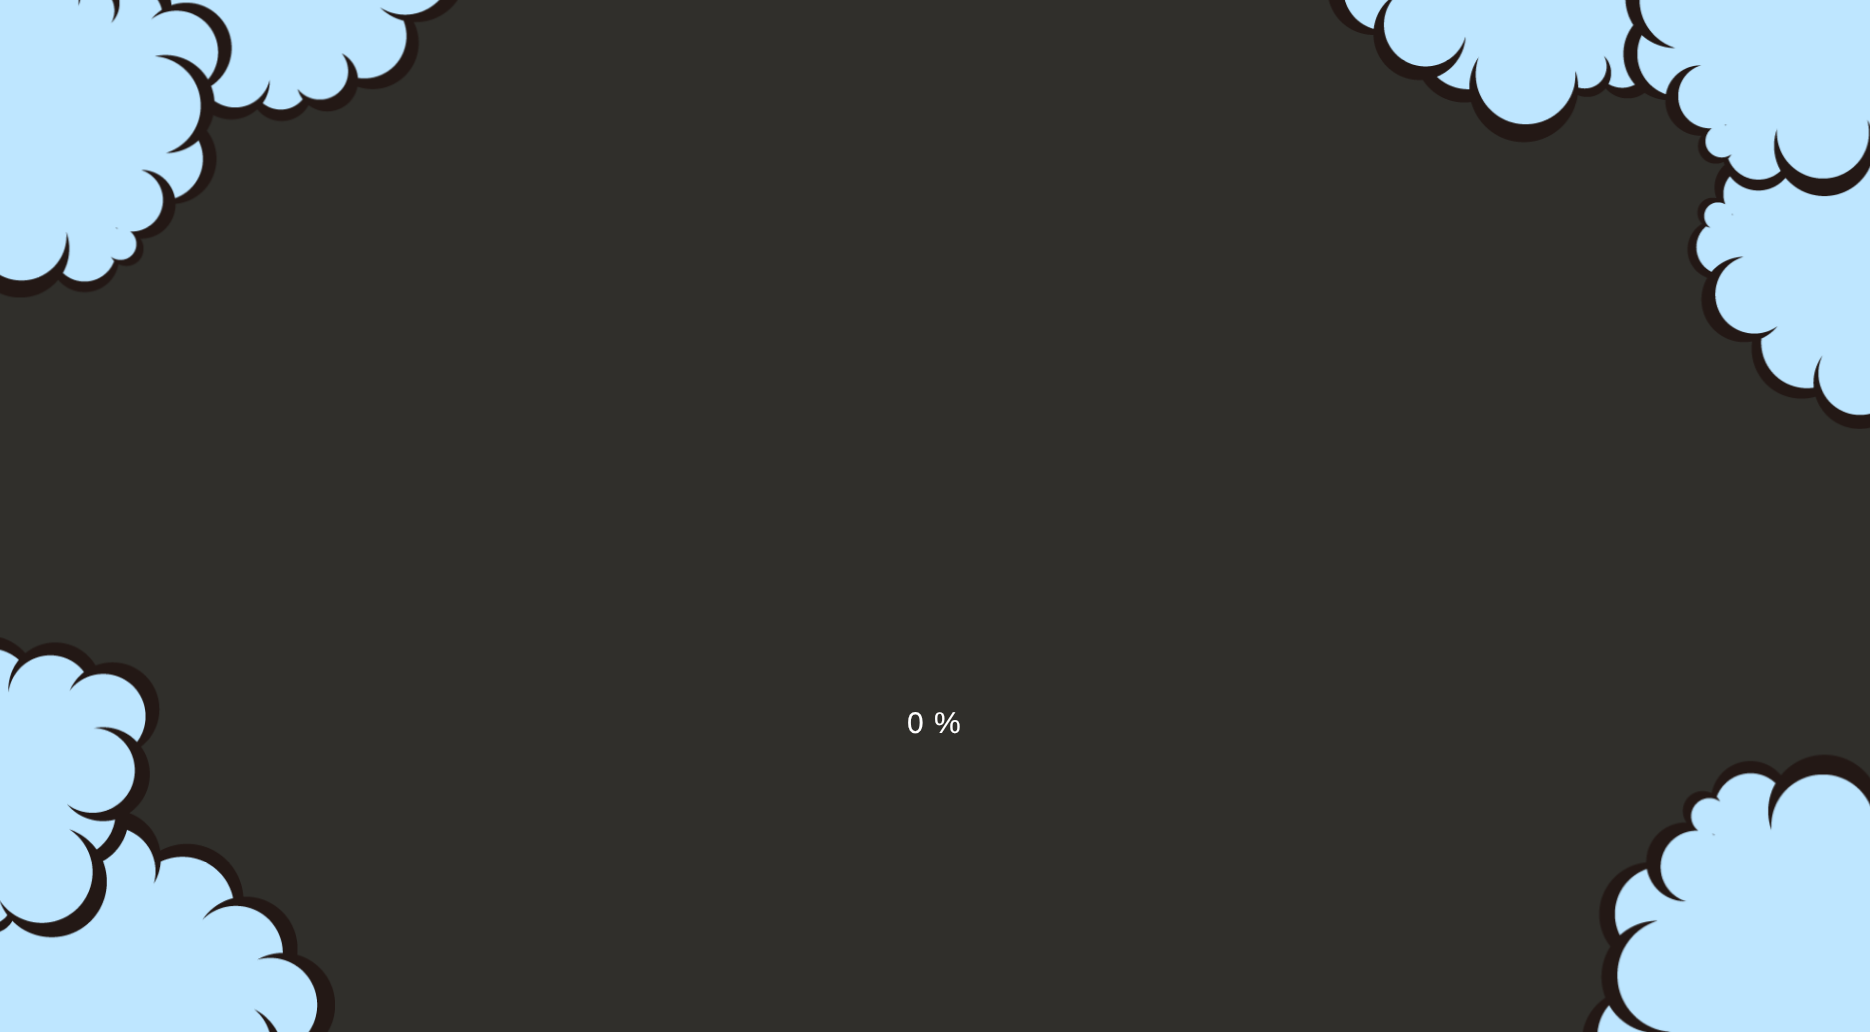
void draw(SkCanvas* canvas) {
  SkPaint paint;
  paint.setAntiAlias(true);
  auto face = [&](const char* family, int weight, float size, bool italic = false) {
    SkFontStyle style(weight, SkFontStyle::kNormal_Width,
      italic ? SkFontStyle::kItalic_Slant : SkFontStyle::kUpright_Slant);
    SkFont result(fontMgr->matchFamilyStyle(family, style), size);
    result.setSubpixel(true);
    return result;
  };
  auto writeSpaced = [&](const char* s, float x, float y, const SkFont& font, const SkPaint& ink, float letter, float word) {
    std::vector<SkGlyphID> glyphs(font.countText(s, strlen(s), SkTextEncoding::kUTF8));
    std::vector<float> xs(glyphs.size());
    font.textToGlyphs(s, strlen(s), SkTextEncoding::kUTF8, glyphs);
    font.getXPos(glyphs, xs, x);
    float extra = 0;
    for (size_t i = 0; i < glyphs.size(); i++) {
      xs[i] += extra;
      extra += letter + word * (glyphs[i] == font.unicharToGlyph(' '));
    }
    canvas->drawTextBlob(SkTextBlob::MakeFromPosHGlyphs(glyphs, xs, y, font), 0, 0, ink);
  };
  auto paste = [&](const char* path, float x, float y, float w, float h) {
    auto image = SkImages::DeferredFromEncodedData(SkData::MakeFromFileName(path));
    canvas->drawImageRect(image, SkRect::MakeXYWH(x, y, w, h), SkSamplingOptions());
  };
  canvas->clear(0xff302f2b);
  paste("img/1.png", 0, 0, 458, 298);
  paste("img/2.png", 1328, 0, 542, 429);
  paste("img/3.png", 0, 637, 335, 395);
  paste("img/4.png", 1582, 754, 288, 278);
  auto f0 = face("Liberation Sans", 400, 30);
  paint.setColor(0xffffffff);
  writeSpaced("0 %", 907, 733, f0, paint, 1, 0);
}
